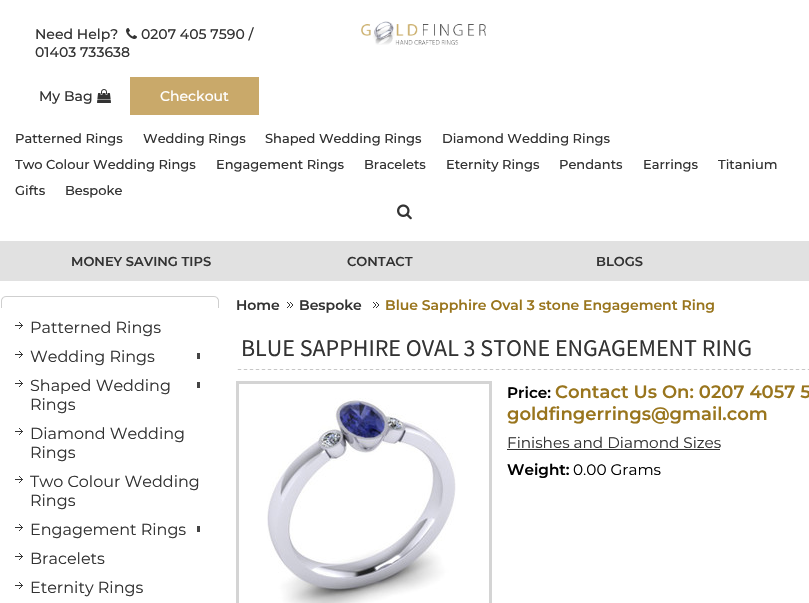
void draw(SkCanvas* canvas) {
  SkPaint paint;
  paint.setAntiAlias(true);
  auto face = [&](const char* family, int weight, float size, bool italic = false) {
    SkFontStyle style(weight, SkFontStyle::kNormal_Width,
      italic ? SkFontStyle::kItalic_Slant : SkFontStyle::kUpright_Slant);
    SkFont result(fontMgr->matchFamilyStyle(family, style), size);
    result.setSubpixel(true);
    return result;
  };
  auto paste = [&](const char* path, float x, float y, float w, float h) {
    auto image = SkImages::DeferredFromEncodedData(SkData::MakeFromFileName(path));
    canvas->drawImageRect(image, SkRect::MakeXYWH(x, y, w, h), SkSamplingOptions());
  };
  canvas->clear(0xffffffff);
  paste("img/1.png", 126, 28, 11, 11);
  paste("img/2.png", 361, 21, 125, 24);
  paste("img/3.png", 97, 89, 14, 14);
  paint.setColor(0xffc9a96a);
  canvas->drawRect(SkRect::MakeXYWH(130, 77, 129, 38), paint);
  paste("img/4.png", 397, 204, 15, 16);
  paint.setColor(0xffe1e1e1);
  canvas->drawRect(SkRect::MakeXYWH(0, 241, 809, 40), paint);
  paste("img/5.png", 1, 296, 218, 12);
  paste("img/6.png", 15, 322, 8, 7);
  paste("img/6.png", 15, 351, 8, 7);
  paint.setColor(0xff444444);
  canvas->drawRect(SkRect::MakeXYWH(197, 353, 3, 6), paint);
  paste("img/6.png", 15, 380, 8, 7);
  canvas->drawRect(SkRect::MakeXYWH(197, 382, 3, 6), paint);
  paste("img/6.png", 15, 428, 8, 7);
  paste("img/6.png", 15, 476, 8, 7);
  paste("img/6.png", 15, 524, 8, 7);
  canvas->drawRect(SkRect::MakeXYWH(197, 526, 3, 6), paint);
  paste("img/6.png", 15, 553, 8, 7);
  paste("img/6.png", 15, 582, 8, 7);
  paste("img/7.png", 287, 302, 6, 6);
  paste("img/7.png", 373, 302, 6, 6);
  paste("img/8.png", 237, 369, 572, 1);
  paint.setStroke(true);
  paint.setStrokeWidth(3);
  paint.setColor(0xffd4d4d4);
  canvas->drawRect(SkRect::MakeXYWH(237.5f, 382.5f, 253, 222), paint);
  paste("img/9.png", 267, 398, 189, 205);
  paint.setStroke(false);
  paint.setColor(0xff333333);
  canvas->drawRect(SkRect::MakeXYWH(507, 449, 213, 1), paint);
  auto f0 = face("Montserrat", 500, 14);
  {
    const struct { const char* s; float x, y; } items[] = {
      {"Need Help?", 35, 39},
      {"0207 405 7590 /", 141, 39},
      {"01403 733638", 35, 57},
      {"My Bag", 39, 101},
    };
    for (auto [s, x, y] : items) {
      canvas->drawString(s, x, y, f0, paint);
    }
  }
  paint.setColor(0xffffffff);
  canvas->drawString("Checkout", 160, 101, f0, paint);
  auto f1 = face("Montserrat", 500, 13);
  paint.setColor(0xff333333);
  {
    const struct { const char* s; float x, y; } items[] = {
      {"Patterned Rings", 15, 143},
      {"Wedding Rings", 143, 143},
      {"Shaped Wedding Rings", 265, 143},
      {"Diamond Wedding Rings", 442, 143},
      {"Two Colour Wedding Rings", 15, 169},
      {"Engagement Rings", 216, 169},
      {"Bracelets", 364, 169},
      {"Eternity Rings", 446, 169},
      {"Pendants", 559, 169},
      {"Earrings", 643, 169},
      {"Titanium", 718, 169},
      {"Gifts", 15, 195},
      {"Bespoke", 65, 195},
    };
    for (auto [s, x, y] : items) {
      canvas->drawString(s, x, y, f1, paint);
    }
  }
  auto f2 = face("Montserrat", 600, 13);
  {
    const struct { const char* s; float x, y; } items[] = {
      {"MONEY SAVING TIPS", 71, 266},
      {"CONTACT", 347, 266},
      {"BLOGS", 596, 266},
    };
    for (auto [s, x, y] : items) {
      canvas->drawString(s, x, y, f2, paint);
    }
  }
  auto f3 = face("Montserrat", 400, 16);
  {
    const struct { const char* s; float x, y; } items[] = {
      {"Patterned Rings", 30, 333},
      {"Wedding Rings", 30, 362},
      {"Shaped Wedding", 30, 391},
      {"Rings", 30, 410},
      {"Diamond Wedding", 30, 439},
      {"Rings", 30, 458},
      {"Two Colour Wedding", 30, 487},
      {"Rings", 30, 506},
      {"Engagement Rings", 30, 535},
      {"Bracelets", 30, 564},
      {"Eternity Rings", 30, 593},
    };
    for (auto [s, x, y] : items) {
      canvas->drawString(s, x, y, f3, paint);
    }
  }
  auto f4 = face("Montserrat", 600, 14);
  canvas->drawString("Home", 236, 310, f4, paint);
  canvas->drawString("Bespoke", 299, 310, f4, paint);
  paint.setColor(0xff99751d);
  canvas->drawString("Blue Sapphire Oval 3 stone Engagement Ring", 385, 310, f4, paint);
  auto f5 = face("Source Sans Pro", 400, 24);
  paint.setColor(0xff333333);
  canvas->drawString("BLUE SAPPHIRE OVAL 3 STONE ENGAGEMENT RING", 241, 356, f5, paint);
  auto f6 = face("Montserrat", 600, 15.25f);
  paint.setColor(0xff000000);
  canvas->drawString("Price:", 507, 398, f6, paint);
  auto f7 = face("Montserrat", 600, 18);
  paint.setColor(0xff99751d);
  canvas->drawString("Contact Us On: 0207 4057 5", 555, 398, f7, paint);
  canvas->drawString("goldfingerrings@gmail.com", 507, 420, f7, paint);
  auto f8 = face("Montserrat", 400, 15.25f);
  paint.setColor(0xff333333);
  canvas->drawString("Finishes and Diamond Sizes", 507, 448, f8, paint);
  paint.setColor(0xff000000);
  canvas->drawString("Weight:", 507, 475, f6, paint);
  canvas->drawString("0.00 Grams", 573, 475, f8, paint);
}
